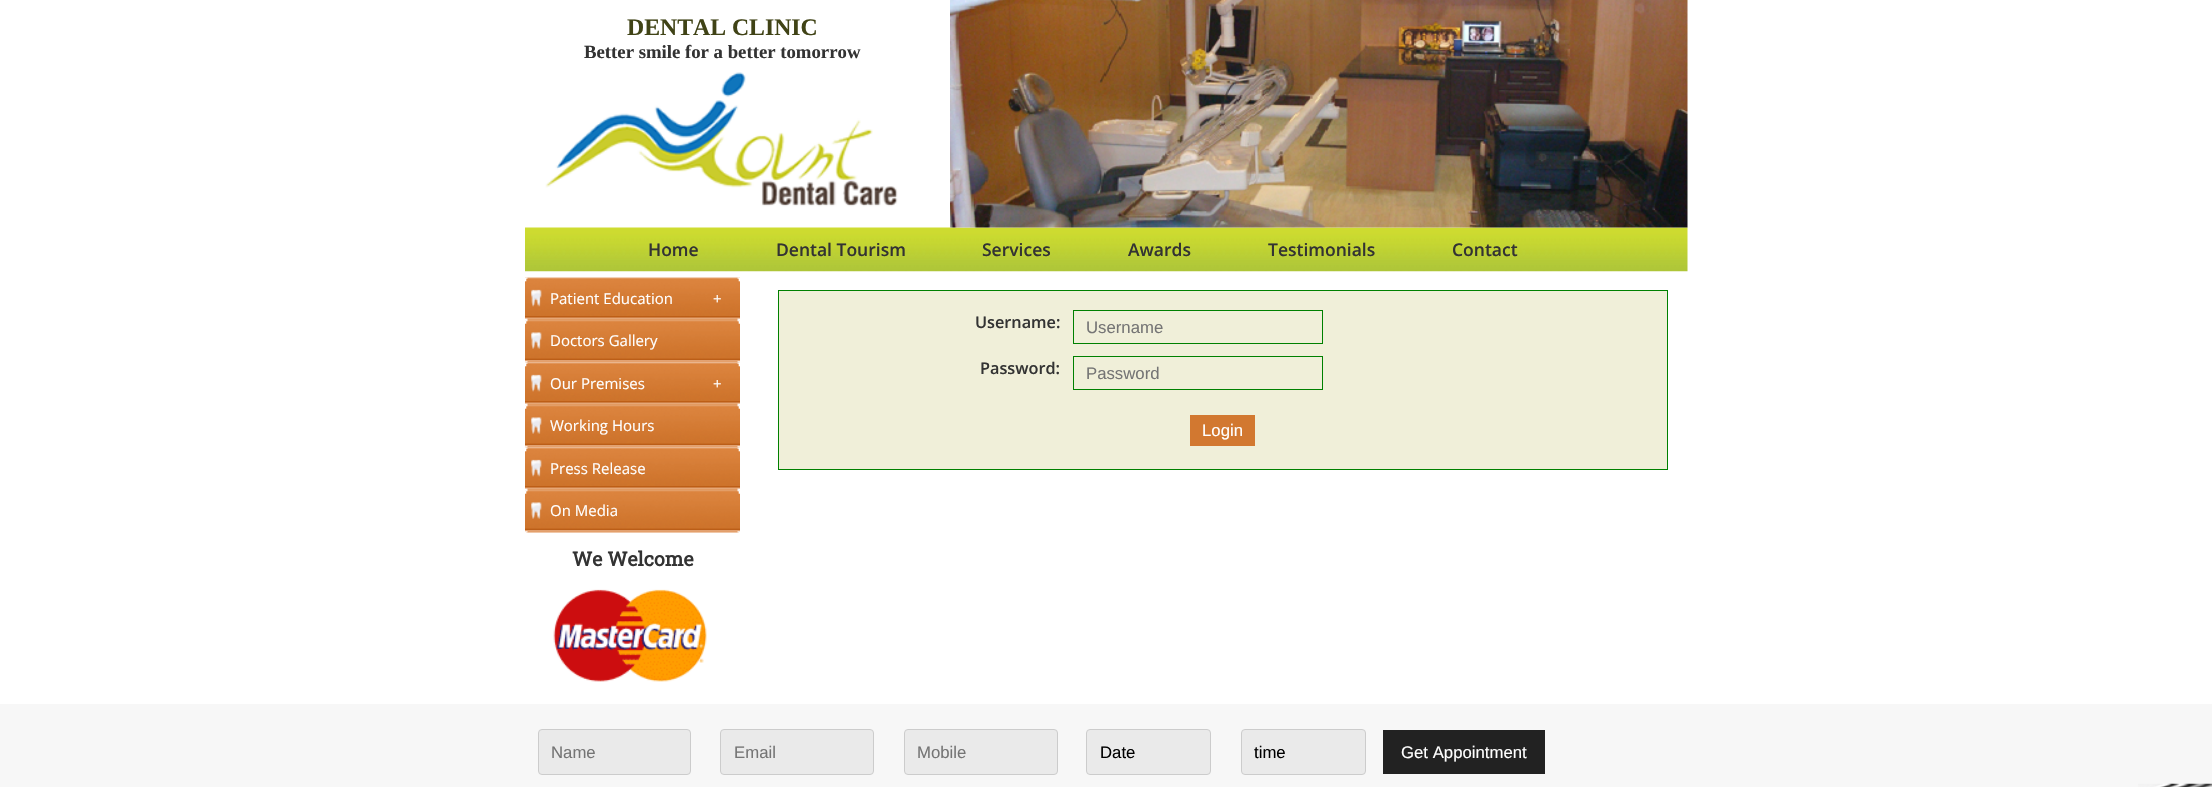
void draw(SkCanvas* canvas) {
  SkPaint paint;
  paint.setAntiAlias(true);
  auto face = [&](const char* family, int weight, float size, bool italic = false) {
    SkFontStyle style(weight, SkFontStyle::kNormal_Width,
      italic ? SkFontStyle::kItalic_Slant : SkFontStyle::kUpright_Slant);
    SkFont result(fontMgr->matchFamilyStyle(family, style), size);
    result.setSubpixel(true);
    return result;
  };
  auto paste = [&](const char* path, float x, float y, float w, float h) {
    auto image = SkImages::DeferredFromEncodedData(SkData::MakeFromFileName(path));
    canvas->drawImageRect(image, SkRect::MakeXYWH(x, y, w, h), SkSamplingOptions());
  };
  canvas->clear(0xffffffff);
  paste("img/1.png", 545, 72, 353, 135);
  paste("img/3.png", 525, 227, 1163, 45);
  paste("img/2.png", 950, 0, 738, 228);
  paste("img/4.png", 525, 277, 215, 43);
  paste("img/5.png", 525, 320, 215, 43);
  paste("img/6.png", 525, 362, 215, 43);
  paste("img/7.png", 525, 405, 215, 43);
  paste("img/8.png", 525, 447, 215, 43);
  paste("img/9.png", 525, 490, 215, 43);
  paste("img/10.png", 553, 589, 154, 93);
  paint.setColor(0xfff0efd9);
  canvas->drawRect(SkRect::MakeXYWH(778.5f, 290.5f, 889, 179), paint);
  paint.setStroke(true);
  paint.setStrokeWidth(1);
  paint.setColor(0xff008000);
  canvas->drawRect(SkRect::MakeXYWH(778.5f, 290.5f, 889, 179), paint);
  canvas->drawRect(SkRect::MakeXYWH(1073.5f, 310.5f, 249, 33), paint);
  canvas->drawRect(SkRect::MakeXYWH(1073.5f, 356.5f, 249, 33), paint);
  paint.setStroke(false);
  paint.setColor(0xffd27830);
  canvas->drawRect(SkRect::MakeXYWH(1190, 415, 65, 31), paint);
  paint.setColor(0xfff7f7f7);
  canvas->drawRect(SkRect::MakeXYWH(0, 704, 2212, 83), paint);
  paste("img/11.png", 2138, 783, 74, 4);
  paint.setColor(0xffeaeaea);
  canvas->drawRoundRect(SkRect::MakeXYWH(538.5f, 729.5f, 152, 45), 3.5f, 3.5f, paint);
  paint.setStroke(true);
  paint.setColor(0xffcccccc);
  canvas->drawRoundRect(SkRect::MakeXYWH(538.5f, 729.5f, 152, 45), 3.5f, 3.5f, paint);
  paint.setStroke(false);
  paint.setColor(0xffeaeaea);
  canvas->drawRoundRect(SkRect::MakeXYWH(720.5f, 729.5f, 153, 45), 3.5f, 3.5f, paint);
  paint.setStroke(true);
  paint.setColor(0xffcccccc);
  canvas->drawRoundRect(SkRect::MakeXYWH(720.5f, 729.5f, 153, 45), 3.5f, 3.5f, paint);
  paint.setStroke(false);
  paint.setColor(0xffeaeaea);
  canvas->drawRoundRect(SkRect::MakeXYWH(904.5f, 729.5f, 153, 45), 3.5f, 3.5f, paint);
  paint.setStroke(true);
  paint.setColor(0xffcccccc);
  canvas->drawRoundRect(SkRect::MakeXYWH(904.5f, 729.5f, 153, 45), 3.5f, 3.5f, paint);
  paint.setStroke(false);
  paint.setColor(0xffeaeaea);
  canvas->drawRoundRect(SkRect::MakeXYWH(1086.5f, 729.5f, 124, 45), 3.5f, 3.5f, paint);
  paint.setStroke(true);
  paint.setColor(0xffcccccc);
  canvas->drawRoundRect(SkRect::MakeXYWH(1086.5f, 729.5f, 124, 45), 3.5f, 3.5f, paint);
  paint.setStroke(false);
  paint.setColor(0xffeaeaea);
  canvas->drawRoundRect(SkRect::MakeXYWH(1241.5f, 729.5f, 124, 45), 3.5f, 3.5f, paint);
  paint.setStroke(true);
  paint.setColor(0xffcccccc);
  canvas->drawRoundRect(SkRect::MakeXYWH(1241.5f, 729.5f, 124, 45), 3.5f, 3.5f, paint);
  paint.setStroke(false);
  paint.setColor(0xff222222);
  canvas->drawRect(SkRect::MakeXYWH(1383, 730, 162, 44), paint);
  auto f0 = face("Liberation Serif", 700, 23.75f);
  paint.setColor(0xff404316);
  canvas->drawString("DENTAL CLINIC", 627, 35, f0, paint);
  auto f1 = face("Liberation Serif", 700, 18.75f);
  paint.setColor(0xff333333);
  canvas->drawString("Better smile for a better tomorrow", 584, 58, f1, paint);
  auto f2 = face("Open Sans", 600, 17.5f);
  {
    const struct { const char* s; float x, y; } items[] = {
      {"Home", 648, 256},
      {"Dental Tourism", 776, 256},
      {"Services", 982, 256},
      {"Awards", 1128, 256},
      {"Testimonials", 1268, 256},
      {"Contact", 1452, 256},
    };
    for (auto [s, x, y] : items) {
      canvas->drawString(s, x, y, f2, paint);
    }
  }
  auto f3 = face("Open Sans", 400, 15);
  paint.setColor(0xffffffff);
  {
    const struct { const char* s; float x, y; } items[] = {
      {"Patient Education", 550, 304},
      {"+", 713, 304},
      {"Doctors Gallery", 550, 346},
      {"Our Premises", 550, 389},
      {"+", 713, 389},
      {"Working Hours", 550, 431},
      {"Press Release", 550, 474},
      {"On Media", 550, 516},
    };
    for (auto [s, x, y] : items) {
      canvas->drawString(s, x, y, f3, paint);
    }
  }
  auto f4 = face("Roboto Slab", 700, 19.5f);
  paint.setColor(0xff333333);
  canvas->drawString("We Welcome", 572, 566, f4, paint);
  auto f5 = face("Open Sans", 600, 16.25f);
  canvas->drawString("Username:", 975, 328, f5, paint);
  auto f6 = face("Liberation Sans", 400, 16.75f);
  paint.setColor(0xff757575);
  canvas->drawString("Username", 1086, 333, f6, paint);
  paint.setColor(0xff333333);
  canvas->drawString("Password:", 980, 374, f5, paint);
  paint.setColor(0xff757575);
  canvas->drawString("Password", 1086, 379, f6, paint);
  paint.setColor(0xffffffff);
  canvas->drawString("Login", 1202, 436, f6, paint);
  paint.setColor(0xff757575);
  {
    const struct { const char* s; float x, y; } items[] = {
      {"Name", 551, 758},
      {"Email", 734, 758},
      {"Mobile", 917, 758},
    };
    for (auto [s, x, y] : items) {
      canvas->drawString(s, x, y, f6, paint);
    }
  }
  paint.setColor(0xff000000);
  canvas->drawString("Date", 1100, 758, f6, paint);
  canvas->drawString("time", 1254, 758, f6, paint);
  paint.setColor(0xffffffff);
  canvas->drawString("Get Appointment", 1401, 758, f6, paint);
}
